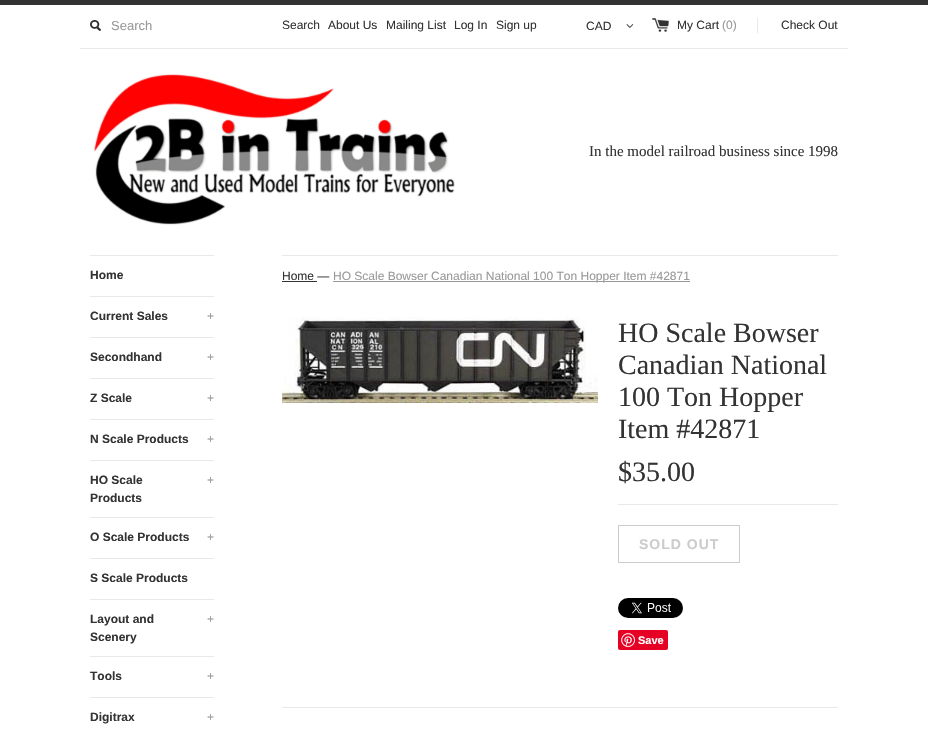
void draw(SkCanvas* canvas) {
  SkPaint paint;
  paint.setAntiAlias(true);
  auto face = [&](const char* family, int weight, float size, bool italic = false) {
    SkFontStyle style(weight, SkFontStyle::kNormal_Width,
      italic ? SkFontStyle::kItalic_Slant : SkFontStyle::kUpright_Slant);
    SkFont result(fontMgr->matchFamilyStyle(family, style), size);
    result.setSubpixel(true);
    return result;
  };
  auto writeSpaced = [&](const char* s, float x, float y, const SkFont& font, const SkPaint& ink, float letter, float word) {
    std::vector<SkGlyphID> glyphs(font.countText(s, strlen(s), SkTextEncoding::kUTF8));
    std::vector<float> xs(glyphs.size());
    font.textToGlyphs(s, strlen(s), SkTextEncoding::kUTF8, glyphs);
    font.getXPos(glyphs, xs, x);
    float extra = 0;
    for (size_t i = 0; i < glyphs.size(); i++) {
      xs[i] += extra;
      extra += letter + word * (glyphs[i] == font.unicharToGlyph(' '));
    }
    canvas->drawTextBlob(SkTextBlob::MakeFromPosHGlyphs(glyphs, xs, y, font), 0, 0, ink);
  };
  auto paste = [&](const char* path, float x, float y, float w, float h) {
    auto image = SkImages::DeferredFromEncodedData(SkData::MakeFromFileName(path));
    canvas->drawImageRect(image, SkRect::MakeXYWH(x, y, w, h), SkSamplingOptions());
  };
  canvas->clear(0xffffffff);
  paint.setColor(0xff333333);
  canvas->drawRect(SkRect::MakeXYWH(0, 0, 928, 5), paint);
  paint.setColor(0xffe8e8e8);
  canvas->drawRect(SkRect::MakeXYWH(80, 48, 768, 1), paint);
  paste("img/1.png", 90, 20, 11, 11);
  paste("img/2.png", 626, 24, 8, 4);
  paste("img/3.png", 652, 18, 17, 14);
  canvas->drawRect(SkRect::MakeXYWH(757, 18, 1, 15), paint);
  paste("img/4.png", 93, 74, 362, 151);
  {
    const struct { float x, y, w, h; SkColor color; } items[] = {
      {90, 255, 124, 1, 0xffe8e8e8},
      {90, 296, 124, 1, 0xffe8e8e8},
      {90, 337, 124, 1, 0xffe8e8e8},
      {90, 378, 124, 1, 0xffe8e8e8},
      {90, 419, 124, 1, 0xffe8e8e8},
      {90, 460, 124, 1, 0xffe8e8e8},
      {90, 517, 124, 1, 0xffe8e8e8},
      {90, 558, 124, 1, 0xffe8e8e8},
      {90, 599, 124, 1, 0xffe8e8e8},
      {90, 656, 124, 1, 0xffe8e8e8},
      {90, 697, 124, 1, 0xffe8e8e8},
      {282, 255, 556, 1, 0xffe8e8e8},
      {282, 281, 35, 1, 0xff333333},
      {333, 281, 357, 1, 0xff999999},
    };
    for (auto [x, y, w, h, color] : items) {
      paint.setColor(color);
      canvas->drawRect(SkRect::MakeXYWH(x, y, w, h), paint);
    }
  }
  paste("img/5.png", 282, 317, 316, 86);
  paint.setColor(0xffe8e8e8);
  canvas->drawRect(SkRect::MakeXYWH(618, 504, 220, 1), paint);
  paint.setStroke(true);
  paint.setStrokeWidth(1);
  paint.setColor(0xffcccccc);
  canvas->drawRect(SkRect::MakeXYWH(618.5f, 525.5f, 121, 37), paint);
  paste("img/6.png", 618, 598, 65, 20);
  paint.setStroke(false);
  paint.setColor(0xffe60023);
  canvas->drawRoundRect(SkRect::MakeXYWH(618, 630, 50, 20), 2, 2, paint);
  paste("img/7.png", 621, 633, 14, 14);
  paint.setColor(0xffe8e8e8);
  canvas->drawRect(SkRect::MakeXYWH(282, 707, 556, 1), paint);
  auto f0 = face("Liberation Sans", 400, 13);
  paint.setColor(0xff999999);
  canvas->drawString("Search", 111, 30, f0, paint);
  auto f1 = face("Liberation Sans", 400, 12);
  paint.setColor(0xff333333);
  {
    const struct { const char* s; float x, y; } items[] = {
      {"Search", 282, 29},
      {"About Us", 328, 29},
      {"Mailing List", 386, 29},
      {"Log In", 454, 29},
      {"Sign up", 496, 29},
      {"CAD", 586, 30},
      {"My Cart", 677, 29},
    };
    for (auto [s, x, y] : items) {
      canvas->drawString(s, x, y, f1, paint);
    }
  }
  paint.setColor(0xff999999);
  canvas->drawString("(0)", 722, 29, f1, paint);
  paint.setColor(0xff333333);
  canvas->drawString("Check Out", 781, 29, f1, paint);
  auto f2 = face("Liberation Serif", 400, 15);
  canvas->drawString("In the model railroad business since 1998", 589, 156, f2, paint);
  auto f3 = face("Liberation Sans", 700, 12);
  canvas->drawString("Home", 90, 279, f3, paint);
  canvas->drawString("Current Sales", 90, 320, f3, paint);
  paint.setColor(0xff999999);
  canvas->drawString("+", 207, 320, f1, paint);
  paint.setColor(0xff333333);
  canvas->drawString("Secondhand", 90, 361, f3, paint);
  paint.setColor(0xff999999);
  canvas->drawString("+", 207, 361, f1, paint);
  paint.setColor(0xff333333);
  canvas->drawString("Z Scale", 90, 402, f3, paint);
  paint.setColor(0xff999999);
  canvas->drawString("+", 207, 402, f1, paint);
  paint.setColor(0xff333333);
  canvas->drawString("N Scale Products", 90, 443, f3, paint);
  paint.setColor(0xff999999);
  canvas->drawString("+", 207, 443, f1, paint);
  paint.setColor(0xff333333);
  canvas->drawString("HO Scale", 90, 484, f3, paint);
  paint.setColor(0xff999999);
  canvas->drawString("+", 207, 484, f1, paint);
  paint.setColor(0xff333333);
  canvas->drawString("Products", 90, 502, f3, paint);
  canvas->drawString("O Scale Products", 90, 541, f3, paint);
  paint.setColor(0xff999999);
  canvas->drawString("+", 207, 541, f1, paint);
  paint.setColor(0xff333333);
  canvas->drawString("S Scale Products", 90, 582, f3, paint);
  canvas->drawString("Layout and", 90, 623, f3, paint);
  paint.setColor(0xff999999);
  canvas->drawString("+", 207, 623, f1, paint);
  paint.setColor(0xff333333);
  canvas->drawString("Scenery", 90, 641, f3, paint);
  canvas->drawString("Tools", 90, 680, f3, paint);
  paint.setColor(0xff999999);
  canvas->drawString("+", 207, 680, f1, paint);
  paint.setColor(0xff333333);
  canvas->drawString("Digitrax", 90, 721, f3, paint);
  paint.setColor(0xff999999);
  canvas->drawString("+", 207, 721, f1, paint);
  paint.setColor(0xff333333);
  canvas->drawString("Home —", 282, 280, f1, paint);
  paint.setColor(0xff999999);
  canvas->drawString("HO Scale Bowser Canadian National 100 Ton Hopper Item #42871", 333, 280, f1, paint);
  auto f4 = face("Liberation Serif", 400, 28);
  paint.setColor(0xff333333);
  {
    const struct { const char* s; float x, y; } items[] = {
      {"HO Scale Bowser", 618, 342},
      {"Canadian National", 618, 374},
      {"100 Ton Hopper", 618, 406},
      {"Item #42871", 618, 438},
      {"$35.00", 618, 481},
    };
    for (auto [s, x, y] : items) {
      canvas->drawString(s, x, y, f4, paint);
    }
  }
  auto f5 = face("Liberation Sans", 700, 14);
  paint.setColor(0xffcccccc);
  writeSpaced("SOLD OUT", 639, 549, f5, paint, 1, 0);
  auto f6 = face("Liberation Sans", 700, 11);
  paint.setColor(0xffffffff);
  canvas->drawString("Save", 638, 644, f6, paint);
}
